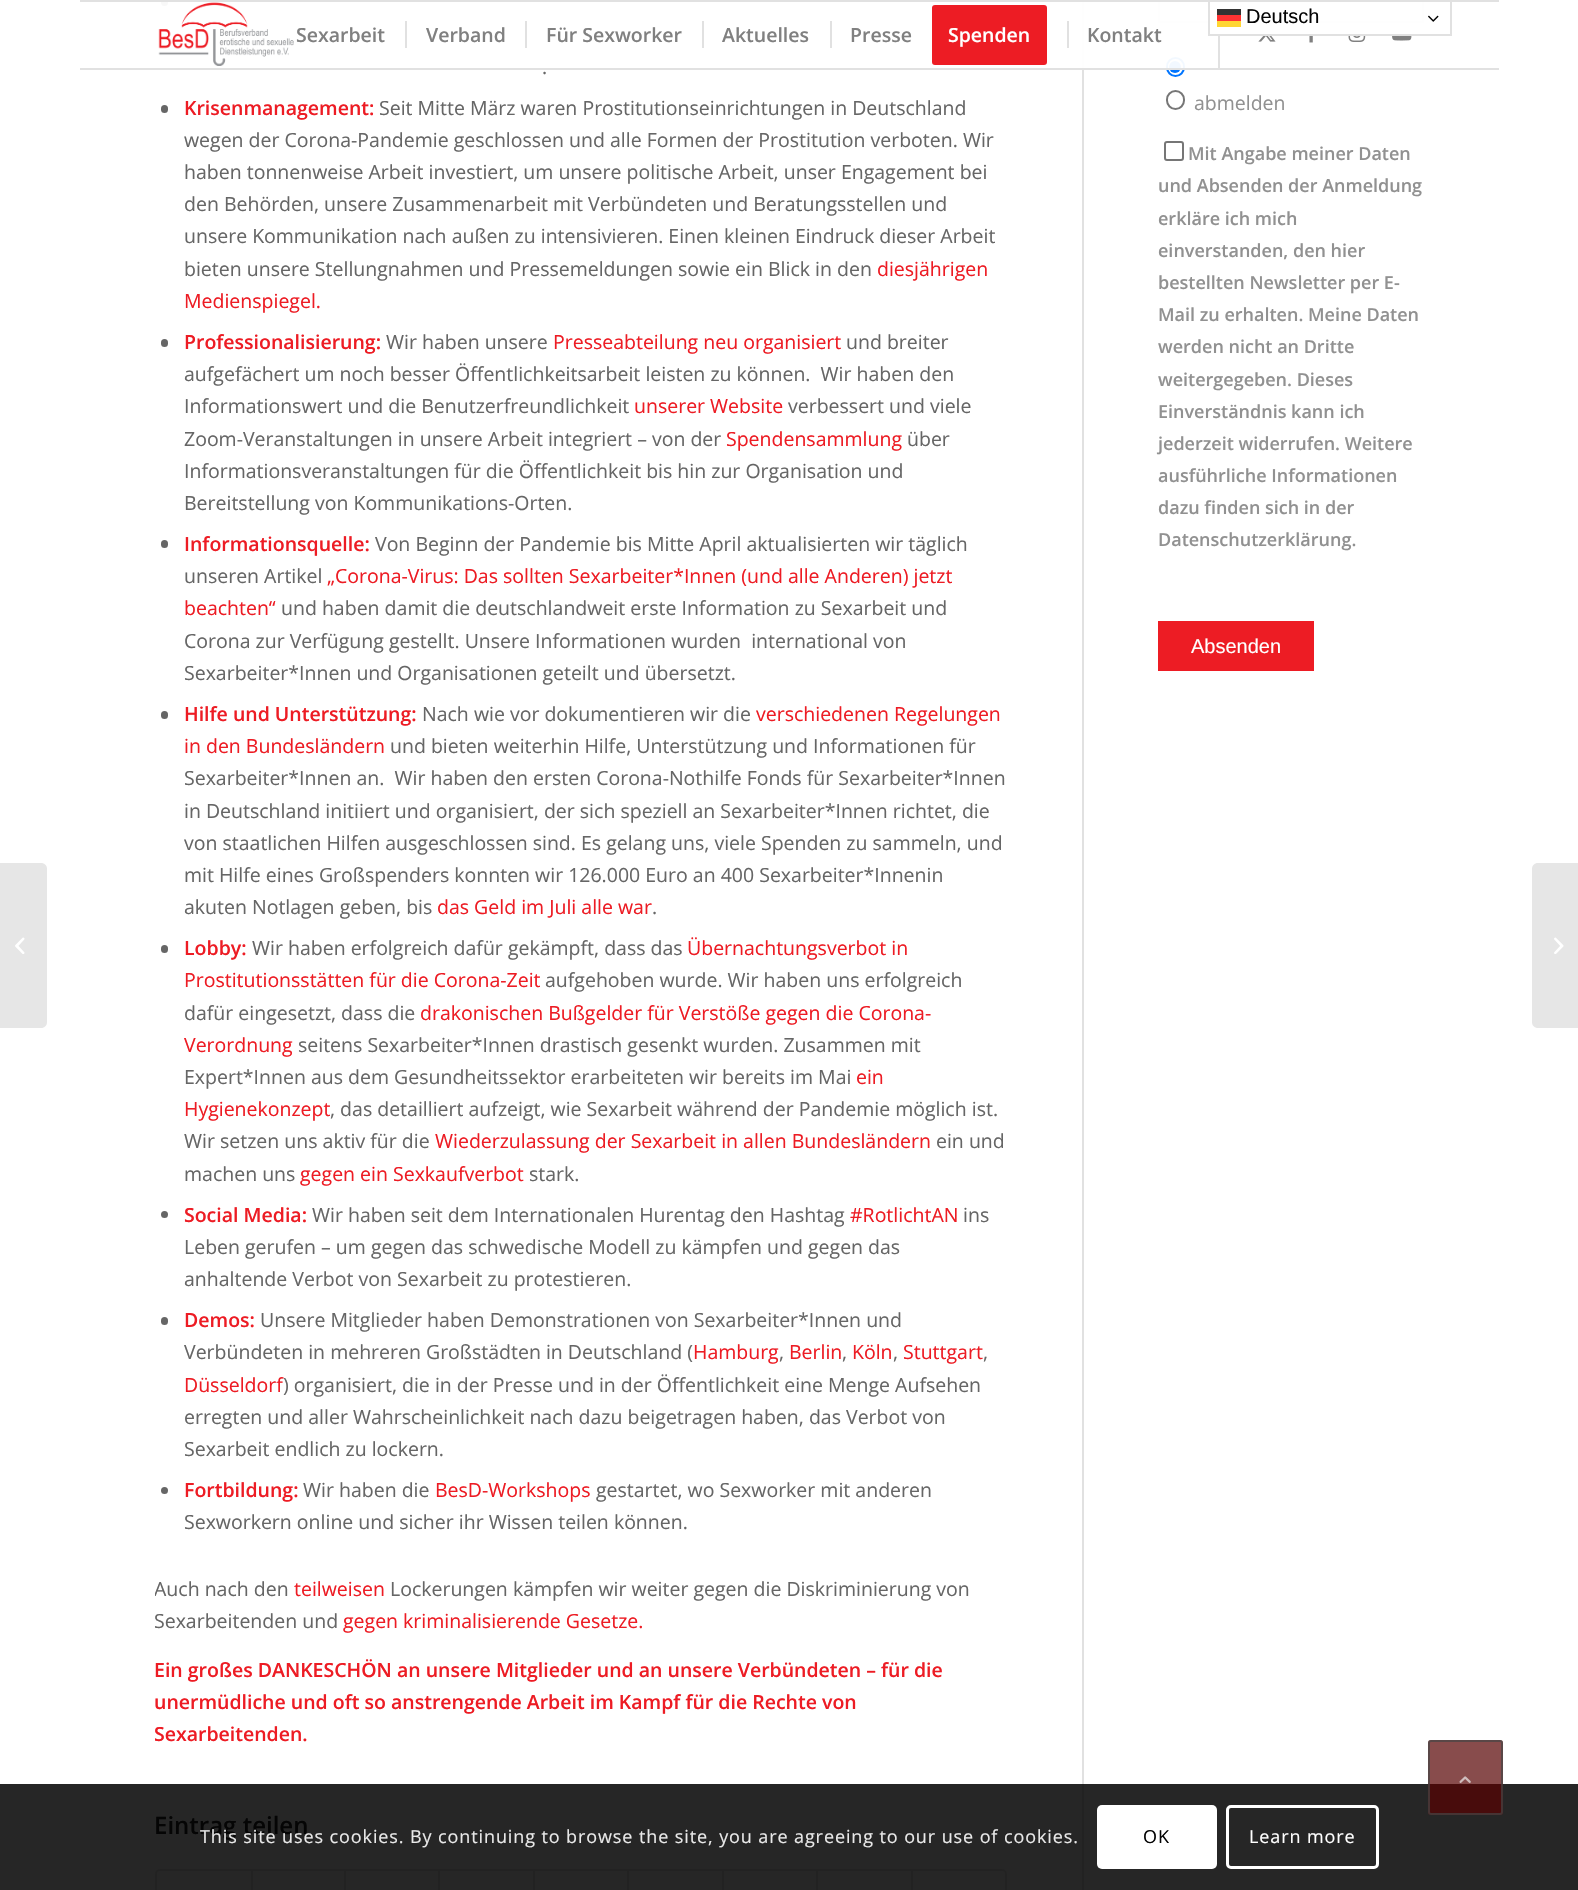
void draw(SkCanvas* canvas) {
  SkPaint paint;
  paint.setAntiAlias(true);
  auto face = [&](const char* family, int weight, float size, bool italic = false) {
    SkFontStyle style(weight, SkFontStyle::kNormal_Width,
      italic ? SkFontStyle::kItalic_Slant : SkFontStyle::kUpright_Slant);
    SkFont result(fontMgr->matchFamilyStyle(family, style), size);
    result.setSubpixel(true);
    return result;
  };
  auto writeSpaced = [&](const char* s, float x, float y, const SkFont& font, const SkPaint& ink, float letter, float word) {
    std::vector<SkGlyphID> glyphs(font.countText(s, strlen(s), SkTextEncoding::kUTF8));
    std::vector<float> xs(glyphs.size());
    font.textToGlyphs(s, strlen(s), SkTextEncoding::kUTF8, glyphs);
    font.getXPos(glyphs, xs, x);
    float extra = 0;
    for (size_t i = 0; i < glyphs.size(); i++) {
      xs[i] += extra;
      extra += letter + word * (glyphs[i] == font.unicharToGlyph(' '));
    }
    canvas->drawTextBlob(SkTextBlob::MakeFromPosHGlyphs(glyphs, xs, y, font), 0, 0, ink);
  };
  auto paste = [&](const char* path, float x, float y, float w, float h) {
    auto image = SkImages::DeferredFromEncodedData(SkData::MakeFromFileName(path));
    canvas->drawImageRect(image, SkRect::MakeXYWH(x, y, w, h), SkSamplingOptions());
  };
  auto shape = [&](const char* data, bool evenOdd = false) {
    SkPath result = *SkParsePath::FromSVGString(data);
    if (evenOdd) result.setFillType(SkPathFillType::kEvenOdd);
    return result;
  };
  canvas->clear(0xffffffff);
  paint.setColor(0xff262626);
  canvas->drawRect(SkRect::MakeXYWH(0, 1784, 1578, 106), paint);
  paint.setColor(0xffe1e1e1);
  canvas->drawRect(SkRect::MakeXYWH(1082, 0, 2, 1784), paint);
  paint.setColor(0xff666666);
  canvas->drawCircle(164.5f, 2.5f, 3.5f, paint);
  paint.setColor(0xfffcfcfc);
  canvas->drawRect(SkRect::MakeXYWH(1160, 2, 48, 19), paint);
  paint.setStroke(true);
  paint.setStrokeWidth(2);
  paint.setColor(0xffe1e1e1);
  canvas->drawRect(SkRect::MakeXYWH(1159, -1, 264, 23), paint);
  paint.setColor(0xff0075ff);
  canvas->drawRoundRect(SkRect::MakeXYWH(1167, 58, 17, 18), 8.5f, 8.5f, paint);
  paint.setStroke(false);
  canvas->drawCircle(1175, 67, 6, paint);
  paint.setColor(0xf2ffffff);
  canvas->drawRect(SkRect::MakeXYWH(161, 2, 1263, 66), paint);
  paint.setColor(0xffe1e1e1);
  canvas->drawRect(SkRect::MakeXYWH(80, 0, 1419, 2), paint);
  paint.setStroke(true);
  canvas->drawRect(SkRect::MakeXYWH(1209, 1, 242, 34), paint);
  paint.setStroke(false);
  paint.setColor(0xff333333);
  canvas->drawRect(SkRect::MakeXYWH(1217, 9, 24, 6), paint);
  paint.setColor(0xffff3333);
  canvas->drawRect(SkRect::MakeXYWH(1217, 15, 24, 6), paint);
  paste("img/1.png", 1428, 15, 11, 7);
  paint.setColor(0xffffd633);
  canvas->drawRect(SkRect::MakeXYWH(1217, 21, 24, 6), paint);
  paint.setColor(0xffe6e6e6);
  canvas->drawPath(shape("M0 863H41C44.5 863 47 865.5 47 869V1022C47 1025.5 44.5 1028 41 1028H0Z"), paint);
  paste("img/2.png", 15, 937, 10, 17);
  paint.setColor(0xffe1e1e1);
  canvas->drawRect(SkRect::MakeXYWH(80, 68, 1419, 2), paint);
  paste("img/3.png", 158, 2, 136, 64);
  {
    const struct { float x, y, w, h; SkColor color; } items[] = {
      {1218, 36, 2, 32, 0xffe1e1e1},
      {405, 21, 2, 27, 0xffe1e1e1},
      {525, 21, 2, 27, 0xffe1e1e1},
      {702, 21, 2, 27, 0xffe1e1e1},
      {830, 21, 2, 27, 0xffe1e1e1},
    };
    for (auto [x, y, w, h, color] : items) {
      paint.setColor(color);
      canvas->drawRect(SkRect::MakeXYWH(x, y, w, h), paint);
    }
  }
  paint.setColor(0xffed1c24);
  canvas->drawRoundRect(SkRect::MakeXYWH(933.5f, 6.5f, 112, 57), 1.5f, 1.5f, paint);
  paint.setStroke(true);
  paint.setStrokeWidth(3);
  canvas->drawRoundRect(SkRect::MakeXYWH(933.5f, 6.5f, 112, 57), 1.5f, 1.5f, paint);
  paint.setStroke(false);
  paint.setColor(0xffe1e1e1);
  canvas->drawRect(SkRect::MakeXYWH(1067, 21, 2, 27), paint);
  paste("img/4.png", 1258, 36, 18, 6);
  paste("img/5.png", 1309, 36, 4, 7);
  paste("img/6.png", 1348, 36, 18, 6);
  paste("img/7.png", 1392, 36, 20, 5);
  paint.setColor(0xff222222);
  canvas->drawRect(SkRect::MakeXYWH(1082, 1784, 2, 106), paint);
  paint.setColor(0xff666666);
  canvas->drawRoundRect(SkRect::MakeXYWH(161, 105, 7, 8), 3.5f, 3.5f, paint);
  canvas->drawRoundRect(SkRect::MakeXYWH(161, 339, 7, 8), 3.5f, 3.5f, paint);
  canvas->drawRoundRect(SkRect::MakeXYWH(161, 540, 7, 8), 3.5f, 3.5f, paint);
  canvas->drawRoundRect(SkRect::MakeXYWH(161, 711, 7, 8), 3.5f, 3.5f, paint);
  canvas->drawRoundRect(SkRect::MakeXYWH(161, 945, 7, 8), 3.5f, 3.5f, paint);
  canvas->drawCircle(164.5f, 1214.5f, 3.5f, paint);
  canvas->drawRoundRect(SkRect::MakeXYWH(161, 1317, 7, 8), 3.5f, 3.5f, paint);
  canvas->drawCircle(164.5f, 1490.5f, 3.5f, paint);
  paint.setStroke(true);
  paint.setStrokeWidth(2);
  paint.setColor(0xff222222);
  canvas->drawRoundRect(SkRect::MakeXYWH(156, 1870, 850, 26), 4, 4, paint);
  paint.setStroke(false);
  {
    const struct { float x, y, w, h; SkColor color; } items[] = {
      {251, 1871, 2, 19, 0xff222222},
      {344, 1871, 2, 19, 0xff222222},
      {438, 1871, 2, 19, 0xff222222},
      {533, 1871, 2, 19, 0xff222222},
      {627, 1871, 2, 19, 0xff222222},
      {722, 1871, 2, 19, 0xff222222},
      {816, 1871, 2, 19, 0xff222222},
      {911, 1871, 2, 19, 0xff222222},
    };
    for (auto [x, y, w, h, color] : items) {
      paint.setColor(color);
      canvas->drawRect(SkRect::MakeXYWH(x, y, w, h), paint);
    }
  }
  paint.setStroke(true);
  paint.setColor(0xff767676);
  canvas->drawRoundRect(SkRect::MakeXYWH(1167, 91, 17, 18), 8.5f, 8.5f, paint);
  canvas->drawRoundRect(SkRect::MakeXYWH(1165, 142, 18, 18), 2, 2, paint);
  paint.setStroke(false);
  paint.setColor(0xffed1c24);
  canvas->drawRect(SkRect::MakeXYWH(1158, 621, 156, 50), paint);
  paint.setColor(0xffe6e6e6);
  canvas->drawPath(shape("M1538 863H1578V1028H1538C1534.5 1028 1532 1025.5 1532 1022V869C1532 865.5 1534.5 863 1538 863Z"), paint);
  paste("img/8.png", 1554, 937, 10, 17);
  paint.setColor(0xb3550000);
  canvas->drawRoundRect(SkRect::MakeXYWH(1428, 1740, 75, 75), 3, 3, paint);
  paint.setStroke(true);
  paint.setColor(0xb3444444);
  canvas->drawRoundRect(SkRect::MakeXYWH(1429, 1741, 73, 73), 2, 2, paint);
  paste("img/9.png", 1459, 1776, 12, 7);
  paint.setStroke(false);
  paint.setColor(0xffffffff);
  canvas->drawRoundRect(SkRect::MakeXYWH(1097, 1805, 120, 64), 5, 5, paint);
  paint.setStroke(true);
  paint.setStrokeWidth(3);
  canvas->drawRoundRect(SkRect::MakeXYWH(1227.5f, 1806.5f, 150, 61), 3.5f, 3.5f, paint);
  auto f0 = face("Liberation Sans", 400, 20);
  paint.setStroke(false);
  paint.setColor(0xff050505);
  canvas->drawString("Deutsch", 1246, 23, f0, paint);
  auto f1 = face("Open Sans", 600, 19.5f);
  paint.setColor(0xff808080);
  {
    const struct { const char* s; float x, y; } items[] = {
      {"Sexarbeit", 296, 42},
      {"Verband", 426, 42},
      {"Für Sexworker", 546, 42},
      {"Aktuelles", 722, 42},
      {"Presse", 850, 42},
    };
    for (auto [s, x, y] : items) {
      canvas->drawString(s, x, y, f1, paint);
    }
  }
  paint.setColor(0xffffffff);
  canvas->drawString("Spenden", 948, 42, f1, paint);
  paint.setColor(0xff808080);
  canvas->drawString("Kontakt", 1087, 42, f1, paint);
  auto f2 = face("Open Sans", 400, 19.5f);
  paint.setColor(0xff666666);
  canvas->drawString(".", 542, 74, f2, paint);
  paint.setColor(0xffed1c24);
  canvas->drawString("Krisenmanagement:", 184, 115, f1, paint);
  paint.setColor(0xff666666);
  {
    const struct { const char* s; float x, y; } items[] = {
      {"Seit Mitte März waren Prostitutionseinrichtungen in Deutschland", 379, 115},
      {"wegen der Corona-Pandemie geschlossen und alle Formen der Prostitution verboten. Wir", 184, 147},
      {"haben tonnenweise Arbeit investiert, um unsere politische Arbeit, unser Engagement bei", 184, 179},
      {"den Behörden, unsere Zusammenarbeit mit Verbündeten und Beratungsstellen und", 184, 211},
      {"unsere Kommunikation nach außen zu intensivieren. Einen kleinen Eindruck dieser Arbeit", 184, 243},
      {"bieten unsere Stellungnahmen und Pressemeldungen sowie ein Blick in den", 184, 276},
    };
    for (auto [s, x, y] : items) {
      canvas->drawString(s, x, y, f2, paint);
    }
  }
  paint.setColor(0xffed1c24);
  canvas->drawString("diesjährigen", 877, 276, f2, paint);
  canvas->drawString("Medienspiegel.", 184, 308, f2, paint);
  canvas->drawString("Professionalisierung:", 184, 349, f1, paint);
  paint.setColor(0xff666666);
  canvas->drawString("Wir haben unsere", 386, 349, f2, paint);
  paint.setColor(0xffed1c24);
  canvas->drawString("Presseabteilung neu organisiert", 553, 349, f2, paint);
  paint.setColor(0xff666666);
  {
    const struct { const char* s; float x, y; } items[] = {
      {"und breiter", 846, 349},
      {"aufgefächert um noch besser Öffentlichkeitsarbeit leisten zu können.  Wir haben den", 184, 381},
      {"Informationswert und die Benutzerfreundlichkeit", 184, 413},
    };
    for (auto [s, x, y] : items) {
      canvas->drawString(s, x, y, f2, paint);
    }
  }
  paint.setColor(0xffed1c24);
  canvas->drawString("unserer Website", 634, 413, f2, paint);
  paint.setColor(0xff666666);
  canvas->drawString("verbessert und viele", 788, 413, f2, paint);
  canvas->drawString("Zoom-Veranstaltungen in unsere Arbeit integriert – von der", 184, 446, f2, paint);
  paint.setColor(0xffed1c24);
  canvas->drawString("Spendensammlung", 726, 446, f2, paint);
  paint.setColor(0xff666666);
  {
    const struct { const char* s; float x, y; } items[] = {
      {"über", 907, 446},
      {"Informationsveranstaltungen für die Öffentlichkeit bis hin zur Organisation und", 184, 478},
      {"Bereitstellung von Kommunikations-Orten.", 184, 510},
    };
    for (auto [s, x, y] : items) {
      canvas->drawString(s, x, y, f2, paint);
    }
  }
  paint.setColor(0xffed1c24);
  canvas->drawString("Informationsquelle:", 184, 551, f1, paint);
  paint.setColor(0xff666666);
  canvas->drawString("Von Beginn der Pandemie bis Mitte April aktualisierten wir täglich", 375, 551, f2, paint);
  canvas->drawString("unseren Artikel", 184, 583, f2, paint);
  paint.setColor(0xffed1c24);
  canvas->drawString("„Corona-Virus: Das sollten Sexarbeiter*Innen (und alle Anderen) jetzt", 327, 583, f2, paint);
  canvas->drawString("beachten“", 184, 615, f2, paint);
  paint.setColor(0xff666666);
  {
    const struct { const char* s; float x, y; } items[] = {
      {"und haben damit die deutschlandweit erste Information zu Sexarbeit und", 281, 615},
      {"Corona zur Verfügung gestellt. Unsere Informationen wurden  international von", 184, 648},
      {"Sexarbeiter*Innen und Organisationen geteilt und übersetzt.", 184, 680},
    };
    for (auto [s, x, y] : items) {
      canvas->drawString(s, x, y, f2, paint);
    }
  }
  paint.setColor(0xffed1c24);
  canvas->drawString("Hilfe und Unterstützung:", 184, 721, f1, paint);
  paint.setColor(0xff666666);
  canvas->drawString("Nach wie vor dokumentieren wir die", 422, 721, f2, paint);
  paint.setColor(0xffed1c24);
  canvas->drawString("verschiedenen Regelungen", 756, 721, f2, paint);
  canvas->drawString("in den Bundesländern", 184, 753, f2, paint);
  paint.setColor(0xff666666);
  {
    const struct { const char* s; float x, y; } items[] = {
      {"und bieten weiterhin Hilfe, Unterstützung und Informationen für", 390, 753},
      {"Sexarbeiter*Innen an.  Wir haben den ersten Corona-Nothilfe Fonds für Sexarbeiter*Innen", 184, 785},
      {"in Deutschland initiiert und organisiert, der sich speziell an Sexarbeiter*Innen richtet, die", 184, 818},
      {"von staatlichen Hilfen ausgeschlossen sind. Es gelang uns, viele Spenden zu sammeln, und", 184, 850},
      {"mit Hilfe eines Großspenders konnten wir 126.000 Euro an 400 Sexarbeiter*Innenin", 184, 882},
      {"akuten Notlagen geben, bis", 184, 914},
    };
    for (auto [s, x, y] : items) {
      canvas->drawString(s, x, y, f2, paint);
    }
  }
  paint.setColor(0xffed1c24);
  canvas->drawString("das Geld im Juli alle war", 437, 914, f2, paint);
  paint.setColor(0xff666666);
  canvas->drawString(".", 652, 914, f2, paint);
  paint.setColor(0xffed1c24);
  canvas->drawString("Lobby:", 184, 955, f1, paint);
  paint.setColor(0xff666666);
  canvas->drawString("Wir haben erfolgreich dafür gekämpft, dass das", 252, 955, f2, paint);
  paint.setColor(0xffed1c24);
  canvas->drawString("Übernachtungsverbot in", 687, 955, f2, paint);
  canvas->drawString("Prostitutionsstätten für die Corona-Zeit", 184, 987, f2, paint);
  paint.setColor(0xff666666);
  canvas->drawString("aufgehoben wurde. Wir haben uns erfolgreich", 545, 987, f2, paint);
  canvas->drawString("dafür eingesetzt, dass die", 184, 1020, f2, paint);
  paint.setColor(0xffed1c24);
  canvas->drawString("drakonischen Bußgelder für Verstöße gegen die Corona-", 420, 1020, f2, paint);
  canvas->drawString("Verordnung", 184, 1052, f2, paint);
  paint.setColor(0xff666666);
  canvas->drawString("seitens Sexarbeiter*Innen drastisch gesenkt wurden. Zusammen mit", 298, 1052, f2, paint);
  canvas->drawString("Expert*Innen aus dem Gesundheitssektor erarbeiteten wir bereits im Mai", 184, 1084, f2, paint);
  paint.setColor(0xffed1c24);
  canvas->drawString("ein", 856, 1084, f2, paint);
  canvas->drawString("Hygienekonzept", 184, 1116, f2, paint);
  paint.setColor(0xff666666);
  canvas->drawString(", das detailliert aufzeigt, wie Sexarbeit während der Pandemie möglich ist.", 330, 1116, f2, paint);
  canvas->drawString("Wir setzen uns aktiv für die", 184, 1148, f2, paint);
  paint.setColor(0xffed1c24);
  canvas->drawString("Wiederzulassung der Sexarbeit in allen Bundesländern", 435, 1148, f2, paint);
  paint.setColor(0xff666666);
  canvas->drawString("ein und", 936, 1148, f2, paint);
  canvas->drawString("machen uns", 184, 1181, f2, paint);
  paint.setColor(0xffed1c24);
  canvas->drawString("gegen ein Sexkaufverbot", 300, 1181, f2, paint);
  paint.setColor(0xff666666);
  canvas->drawString("stark.", 529, 1181, f2, paint);
  paint.setColor(0xffed1c24);
  canvas->drawString("Social Media:", 184, 1222, f1, paint);
  paint.setColor(0xff666666);
  canvas->drawString("Wir haben seit dem Internationalen Hurentag den Hashtag", 312, 1222, f2, paint);
  paint.setColor(0xffed1c24);
  canvas->drawString("#RotlichtAN", 850, 1222, f2, paint);
  paint.setColor(0xff666666);
  {
    const struct { const char* s; float x, y; } items[] = {
      {"ins", 963, 1222},
      {"Leben gerufen – um gegen das schwedische Modell zu kämpfen und gegen das", 184, 1254},
      {"anhaltende Verbot von Sexarbeit zu protestieren.", 184, 1286},
    };
    for (auto [s, x, y] : items) {
      canvas->drawString(s, x, y, f2, paint);
    }
  }
  paint.setColor(0xffed1c24);
  canvas->drawString("Demos:", 184, 1327, f1, paint);
  paint.setColor(0xff666666);
  canvas->drawString("Unsere Mitglieder haben Demonstrationen von Sexarbeiter*Innen und", 260, 1327, f2, paint);
  canvas->drawString("Verbündeten in mehreren Großstädten in Deutschland (", 184, 1359, f2, paint);
  paint.setColor(0xffed1c24);
  canvas->drawString("Hamburg", 693, 1359, f2, paint);
  paint.setColor(0xff666666);
  canvas->drawString(",", 779, 1359, f2, paint);
  paint.setColor(0xffed1c24);
  canvas->drawString("Berlin", 789, 1359, f2, paint);
  paint.setColor(0xff666666);
  canvas->drawString(",", 842, 1359, f2, paint);
  paint.setColor(0xffed1c24);
  canvas->drawString("Köln", 852, 1359, f2, paint);
  paint.setColor(0xff666666);
  canvas->drawString(",", 893, 1359, f2, paint);
  paint.setColor(0xffed1c24);
  canvas->drawString("Stuttgart", 903, 1359, f2, paint);
  paint.setColor(0xff666666);
  canvas->drawString(",", 983, 1359, f2, paint);
  paint.setColor(0xffed1c24);
  canvas->drawString("Düsseldorf", 184, 1392, f2, paint);
  paint.setColor(0xff666666);
  {
    const struct { const char* s; float x, y; } items[] = {
      {") organisiert, die in der Presse und in der Öffentlichkeit eine Menge Aufsehen", 283, 1392},
      {"erregten und aller Wahrscheinlichkeit nach dazu beigetragen haben, das Verbot von", 184, 1424},
      {"Sexarbeit endlich zu lockern.", 184, 1456},
    };
    for (auto [s, x, y] : items) {
      canvas->drawString(s, x, y, f2, paint);
    }
  }
  paint.setColor(0xffed1c24);
  canvas->drawString("Fortbildung:", 184, 1497, f1, paint);
  paint.setColor(0xff666666);
  canvas->drawString("Wir haben die", 303, 1497, f2, paint);
  paint.setColor(0xffed1c24);
  canvas->drawString("BesD-Workshops", 435, 1497, f2, paint);
  paint.setColor(0xff666666);
  canvas->drawString("gestartet, wo Sexworker mit anderen", 596, 1497, f2, paint);
  canvas->drawString("Sexworkern online und sicher ihr Wissen teilen können.", 184, 1529, f2, paint);
  canvas->save();
  canvas->clipRect(SkRect::MakeXYWH(155, 0, 927, 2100));
  canvas->drawString("Auch nach den", 154, 1596, f2, paint);
  canvas->restore();
  paint.setColor(0xffed1c24);
  canvas->drawString("teilweisen", 294, 1596, f2, paint);
  paint.setColor(0xff666666);
  canvas->drawString("Lockerungen kämpfen wir weiter gegen die Diskriminierung von", 390, 1596, f2, paint);
  canvas->drawString("Sexarbeitenden und", 154, 1628, f2, paint);
  paint.setColor(0xffed1c24);
  canvas->drawString("gegen kriminalisierende Gesetze.", 343, 1628, f2, paint);
  canvas->drawString("Ein großes DANKESCHÖN an unsere Mitglieder und an unsere Verbündeten – für die", 154, 1677, f1, paint);
  canvas->drawString("unermüdliche und oft so anstrengende Arbeit im Kampf für die Rechte von", 154, 1709, f1, paint);
  canvas->save();
  canvas->clipRect(SkRect::MakeXYWH(155, 0, 927, 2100));
  canvas->drawString("Sexarbeitenden.", 154, 1741, f1, paint);
  canvas->restore();
  auto f3 = face("Open Sans", 600, 24);
  paint.setColor(0xff050505);
  canvas->drawString("Eintrag teilen", 154, 1834, f3, paint);
  paint.setColor(0xff919191);
  canvas->drawString("abmelden", 1194, 110, f2, paint);
  auto f4 = face("Open Sans", 600, 18);
  {
    const struct { const char* s; float x, y; } items[] = {
      {"Mit Angabe meiner Daten", 1188, 160},
      {"und Absenden der Anmeldung", 1158, 192},
      {"erkläre ich mich", 1158, 225},
      {"einverstanden, den hier", 1158, 257},
      {"bestellten Newsletter per E-", 1158, 289},
      {"Mail zu erhalten. Meine Daten", 1158, 321},
      {"werden nicht an Dritte", 1158, 353},
      {"weitergegeben. Dieses", 1158, 386},
      {"Einverständnis kann ich", 1158, 418},
      {"jederzeit widerrufen. Weitere", 1158, 450},
      {"ausführliche Informationen", 1158, 482},
      {"dazu finden sich in der", 1158, 514},
      {"Datenschutzerklärung.", 1158, 546},
    };
    for (auto [s, x, y] : items) {
      canvas->drawString(s, x, y, f4, paint);
    }
  }
  paint.setColor(0xffffffff);
  canvas->drawString("Absenden", 1191, 653, f0, paint);
  auto f5 = face("Open Sans", 400, 18);
  paint.setColor(0xffe9e9e9);
  writeSpaced("This site uses cookies. By continuing to browse the site, you are agreeing to our use of cookies.", 200, 1843, f5, paint, 0.9f, 0);
  paint.setColor(0xff050505);
  writeSpaced("OK", 1143, 1843, f5, paint, 0.9f, 0);
  paint.setColor(0xffffffff);
  writeSpaced("Learn more", 1249, 1843, f5, paint, 0.9f, 0);
}
